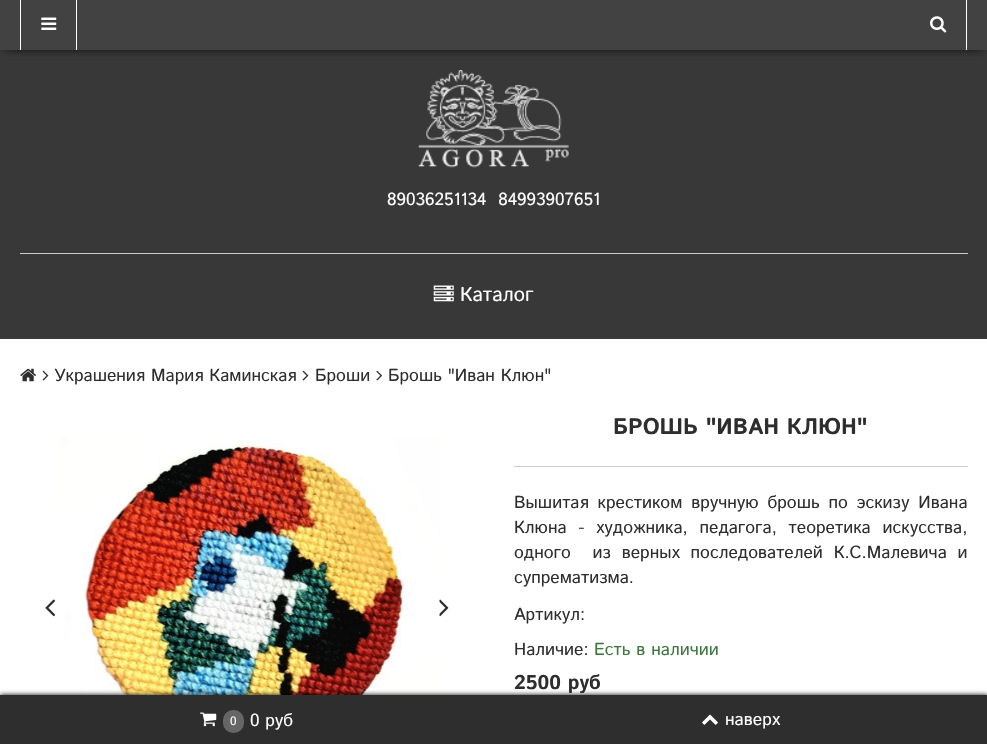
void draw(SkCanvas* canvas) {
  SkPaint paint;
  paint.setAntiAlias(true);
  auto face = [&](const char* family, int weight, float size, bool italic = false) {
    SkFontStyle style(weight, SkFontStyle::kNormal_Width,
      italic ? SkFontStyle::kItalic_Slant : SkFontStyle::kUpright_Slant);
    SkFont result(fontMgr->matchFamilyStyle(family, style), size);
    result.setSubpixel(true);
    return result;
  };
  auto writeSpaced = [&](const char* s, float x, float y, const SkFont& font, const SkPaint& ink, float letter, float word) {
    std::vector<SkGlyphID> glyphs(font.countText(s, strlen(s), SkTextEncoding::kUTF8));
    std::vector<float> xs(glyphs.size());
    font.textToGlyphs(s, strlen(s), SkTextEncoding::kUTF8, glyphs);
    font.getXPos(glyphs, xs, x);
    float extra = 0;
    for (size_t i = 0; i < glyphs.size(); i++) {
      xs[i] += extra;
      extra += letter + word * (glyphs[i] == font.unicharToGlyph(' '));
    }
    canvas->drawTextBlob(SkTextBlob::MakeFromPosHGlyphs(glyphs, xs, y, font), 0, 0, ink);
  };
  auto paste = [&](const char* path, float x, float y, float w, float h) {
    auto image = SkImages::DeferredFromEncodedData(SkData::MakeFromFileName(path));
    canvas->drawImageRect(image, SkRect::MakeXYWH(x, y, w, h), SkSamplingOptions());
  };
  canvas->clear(0xff383838);
  paint.setColor(0xff000000);
  paint.setMaskFilter(SkMaskFilter::MakeBlur(kNormal_SkBlurStyle, 5));
  canvas->drawRect(SkRect::MakeXYWH(5, 8, 978, 40), paint);
  paint.setMaskFilter(nullptr);
  {
    const struct { float x, y, w, h; SkColor color; } items[] = {
      {0, 0, 987, 50, 0xff424242},
      {76, 0, 1, 50, 0xffffffff},
      {20, 0, 1, 50, 0xffffffff},
    };
    for (auto [x, y, w, h, color] : items) {
      paint.setColor(color);
      canvas->drawRect(SkRect::MakeXYWH(x, y, w, h), paint);
    }
  }
  paste("img/1.png", 41, 17, 16, 13);
  canvas->drawRect(SkRect::MakeXYWH(966, 0, 1, 50), paint);
  paste("img/2.png", 930, 16, 17, 17);
  paste("img/3.png", 418, 70, 151, 98);
  paint.setColor(0xffcccccc);
  canvas->drawRect(SkRect::MakeXYWH(20, 253, 948, 1), paint);
  paste("img/4.png", 433, 285, 21, 17);
  paint.setColor(0xffffffff);
  canvas->drawRect(SkRect::MakeXYWH(0, 339, 987, 356), paint);
  paste("img/5.png", 20, 368, 16, 14);
  paste("img/6.png", 42, 370, 7, 11);
  paste("img/6.png", 302, 370, 7, 11);
  paste("img/7.png", 376, 370, 6, 11);
  paste("img/9.png", 45, 599, 11, 18);
  paste("img/10.png", 438, 599, 11, 18);
  paste("img/8.png", 54, 437, 386, 258);
  paint.setColor(0xffcccccc);
  canvas->drawRect(SkRect::MakeXYWH(514, 466, 454, 1), paint);
  paint.setColor(0xff000000);
  paint.setMaskFilter(SkMaskFilter::MakeBlur(kNormal_SkBlurStyle, 2.5f));
  canvas->drawRect(SkRect::MakeXYWH(0, 695, 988, 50), paint);
  paint.setMaskFilter(nullptr);
  paint.setColor(0xff2e2e2e);
  canvas->drawRect(SkRect::MakeXYWH(0, 695, 987, 49), paint);
  paste("img/11.png", 200, 712, 17, 15);
  paint.setColor(0xff666666);
  canvas->drawRoundRect(SkRect::MakeXYWH(223, 710, 21, 23), 10, 10, paint);
  paste("img/12.png", 702, 714, 16, 11);
  auto f0 = face("Istok Web", 400, 17.5f);
  paint.setColor(0xffffffff);
  canvas->drawString("89036251134  84993907651", 387, 205, f0, paint);
  auto f1 = face("Istok Web", 400, 20);
  canvas->drawString("Каталог", 460, 301, f1, paint);
  paint.setColor(0xff2e2e2e);
  {
    const struct { const char* s; float x, y; } items[] = {
      {"Украшения Мария Каминская", 54, 381},
      {"Броши", 315, 381},
      {"Брошь \"Иван Клюн\"", 388, 381},
    };
    for (auto [s, x, y] : items) {
      canvas->drawString(s, x, y, f0, paint);
    }
  }
  auto f2 = face("Istok Web", 700, 22.5f);
  canvas->drawString("БРОШЬ \"ИВАН КЛЮН\"", 613, 434, f2, paint);
  writeSpaced("Вышитая крестиком вручную брошь по эскизу Ивана", 514, 508, f0, paint, 0, 3);
  writeSpaced("Клюна - художника, педагога, теоретика искусства,", 514, 533, f0, paint, 0, 6);
  writeSpaced("одного  из верных последователей К.С.Малевича и", 514, 558, f0, paint, 0, 5);
  {
    const struct { const char* s; float x, y; } items[] = {
      {"супрематизма.", 514, 583},
      {"Артикул:", 514, 620},
      {"Наличие:", 514, 655},
    };
    for (auto [s, x, y] : items) {
      canvas->drawString(s, x, y, f0, paint);
    }
  }
  paint.setColor(0xff3c763d);
  canvas->drawString("Есть в наличии", 594, 655, f0, paint);
  auto f3 = face("Istok Web", 700, 20);
  paint.setColor(0xff2e2e2e);
  canvas->drawString("2500 руб", 514, 689, f3, paint);
  auto f4 = face("Istok Web", 400, 12);
  paint.setColor(0xffffffff);
  canvas->drawString("0", 230, 725, f4, paint);
  canvas->drawString("0 руб", 250, 726, f0, paint);
  canvas->drawString("наверх", 725, 725, f0, paint);
}
